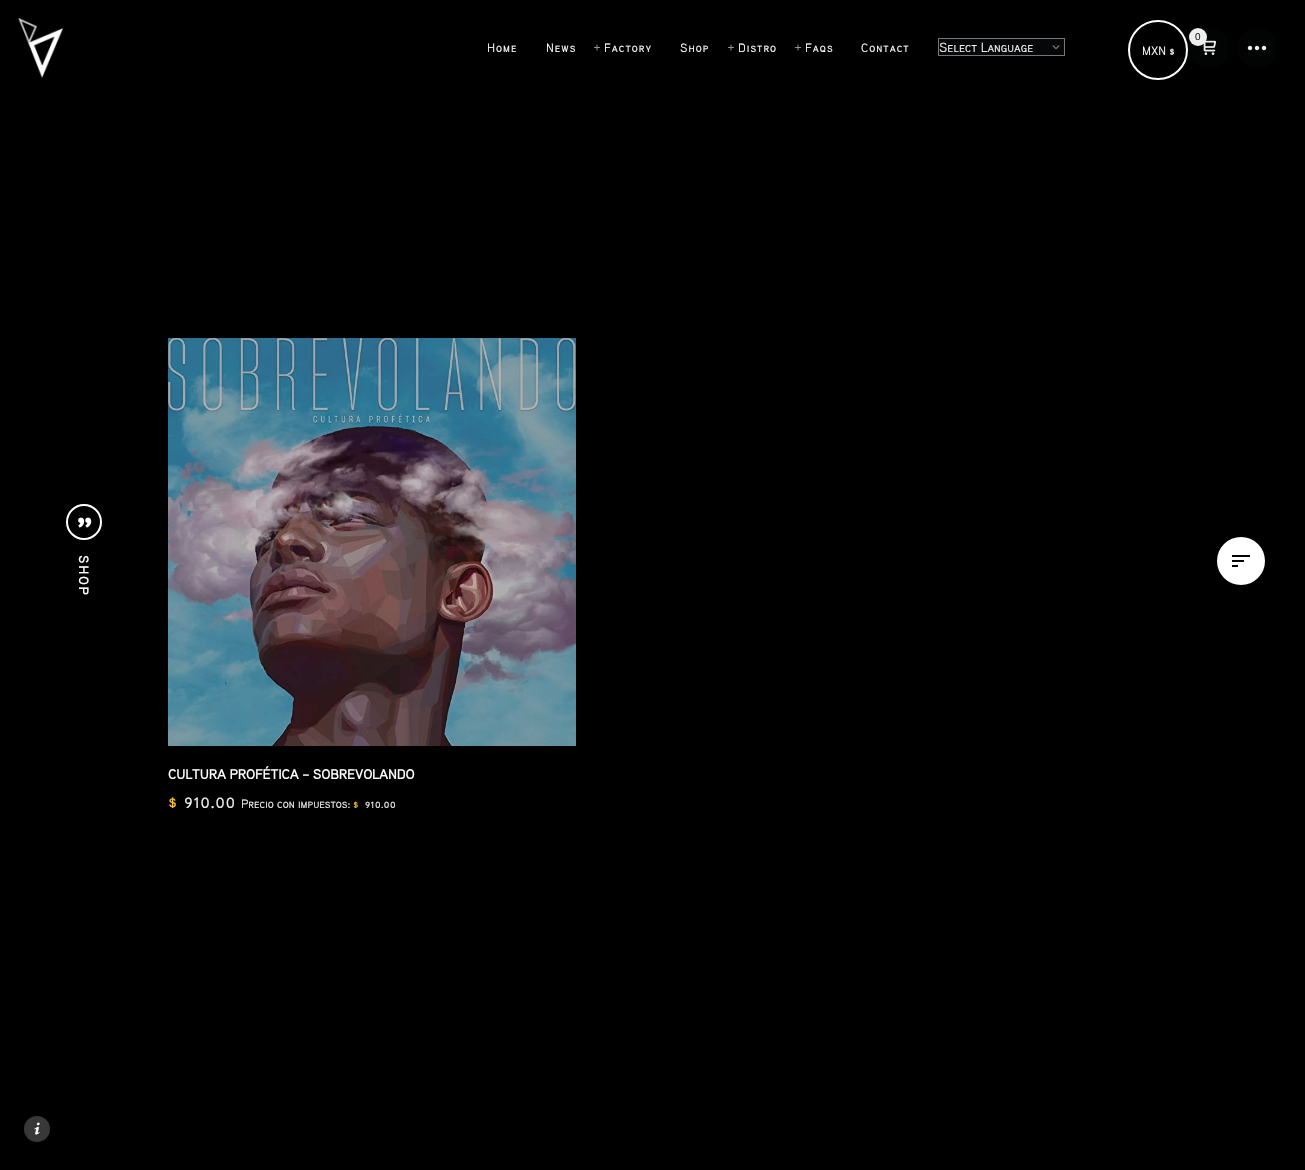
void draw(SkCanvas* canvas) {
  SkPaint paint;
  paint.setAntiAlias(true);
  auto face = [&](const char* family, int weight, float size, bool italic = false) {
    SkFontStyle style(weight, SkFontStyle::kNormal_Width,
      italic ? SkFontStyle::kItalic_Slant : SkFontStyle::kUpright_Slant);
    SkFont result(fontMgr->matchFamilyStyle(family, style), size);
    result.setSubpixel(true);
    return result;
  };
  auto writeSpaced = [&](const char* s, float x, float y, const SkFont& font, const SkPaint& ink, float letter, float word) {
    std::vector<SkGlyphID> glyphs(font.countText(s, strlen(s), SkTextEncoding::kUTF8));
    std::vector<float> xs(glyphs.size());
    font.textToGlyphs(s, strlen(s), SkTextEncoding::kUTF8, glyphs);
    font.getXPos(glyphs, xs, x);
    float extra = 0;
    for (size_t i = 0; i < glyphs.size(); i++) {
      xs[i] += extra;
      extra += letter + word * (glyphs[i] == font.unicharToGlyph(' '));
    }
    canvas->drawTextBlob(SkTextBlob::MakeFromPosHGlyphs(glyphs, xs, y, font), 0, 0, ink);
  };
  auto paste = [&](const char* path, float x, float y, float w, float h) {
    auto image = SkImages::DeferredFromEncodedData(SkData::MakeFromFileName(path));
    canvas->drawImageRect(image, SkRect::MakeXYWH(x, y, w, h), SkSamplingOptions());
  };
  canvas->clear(0xff000000);
  paste("img/1.png", 18, 18, 45, 60);
  paint.setColor(0xff020303);
  canvas->drawCircle(1209, 48, 20, paint);
  paste("img/2.png", 1203, 40, 14, 15);
  paint.setColor(0xffeeeeee);
  canvas->drawCircle(1198, 37, 9, paint);
  paint.setColor(0xff020303);
  canvas->drawCircle(1257, 48, 20, paint);
  paste("img/3.png", 1247, 45, 20, 6);
  paste("img/4.png", 594, 44, 6, 7);
  paste("img/4.png", 728, 44, 6, 7);
  paste("img/4.png", 795, 44, 6, 7);
  paint.setColor(0xff060708);
  canvas->drawRect(SkRect::MakeXYWH(939, 39, 125, 16), paint);
  paste("img/5.png", 1052, 45, 8, 5);
  paint.setStroke(true);
  paint.setStrokeWidth(1);
  paint.setColor(0xff767676);
  canvas->drawRect(SkRect::MakeXYWH(938.5f, 38.5f, 126, 17), paint);
  paint.setStrokeWidth(2);
  paint.setColor(0xffffffff);
  canvas->drawCircle(1158, 50, 29, paint);
  canvas->drawCircle(84, 522, 17, paint);
  paste("img/6.png", 78, 517, 14, 11);
  paste("img/7.png", 168, 338, 408, 408);
  paint.setStroke(false);
  canvas->drawCircle(1241, 561, 24, paint);
  paste("img/8.png", 1232, 555, 18, 12);
  paint.setColor(0xff383838);
  canvas->drawCircle(37, 1129, 13, paint);
  paste("img/9.png", 34, 1122, 6, 13);
  auto f0 = face("Liberation Sans", 400, 10);
  paint.setColor(0xff262728);
  canvas->drawString("0", 1195, 40, f0, paint);
  auto f1 = face("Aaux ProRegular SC", 400, 12);
  paint.setColor(0xffffffff);
  {
    const struct { const char* s; float x, y; } items[] = {
      {"Home", 487, 52},
      {"News", 546, 52},
      {"Factory", 604, 52},
      {"Shop", 680, 52},
      {"Distro", 738, 52},
      {"Faqs", 805, 52},
      {"Contact", 861, 52},
    };
    for (auto [s, x, y] : items) {
      writeSpaced(s, x, y, f1, paint, 1, 0);
    }
  }
  auto f2 = face("Aaux ProRegular SC", 400, 13.25f);
  paint.setColor(0xffeeeeee);
  canvas->drawString("Select Language", 939, 52, f2, paint);
  paint.setColor(0xffffffff);
  canvas->drawString("MXN $", 1142, 55, f1, paint);
  auto f3 = face("Aaux ProRegular SC", 700, 13);
  canvas->save();
  canvas->rotate(90, 79, 555);
  writeSpaced("SHOP", 79, 555, f3, paint, 2, 0);
  canvas->restore();
  auto f4 = face("Aaux ProRegular SC", 700, 13.5f);
  canvas->drawString("CULTURA PROFÉTICA – SOBREVOLANDO", 168, 779, f4, paint);
  auto f5 = face("Aaux ProRegular SC", 400, 20);
  paint.setColor(0xfffbc032);
  canvas->drawString("$", 168, 808, f5, paint);
  paint.setColor(0xffeeeeee);
  canvas->drawString("910.00", 184, 808, f5, paint);
  canvas->drawString("Precio con impuestos:", 241, 808, f1, paint);
  paint.setColor(0xfffbc032);
  canvas->drawString("$", 353, 808, f1, paint);
  paint.setColor(0xffeeeeee);
  canvas->drawString("910.00", 365, 808, f1, paint);
}
